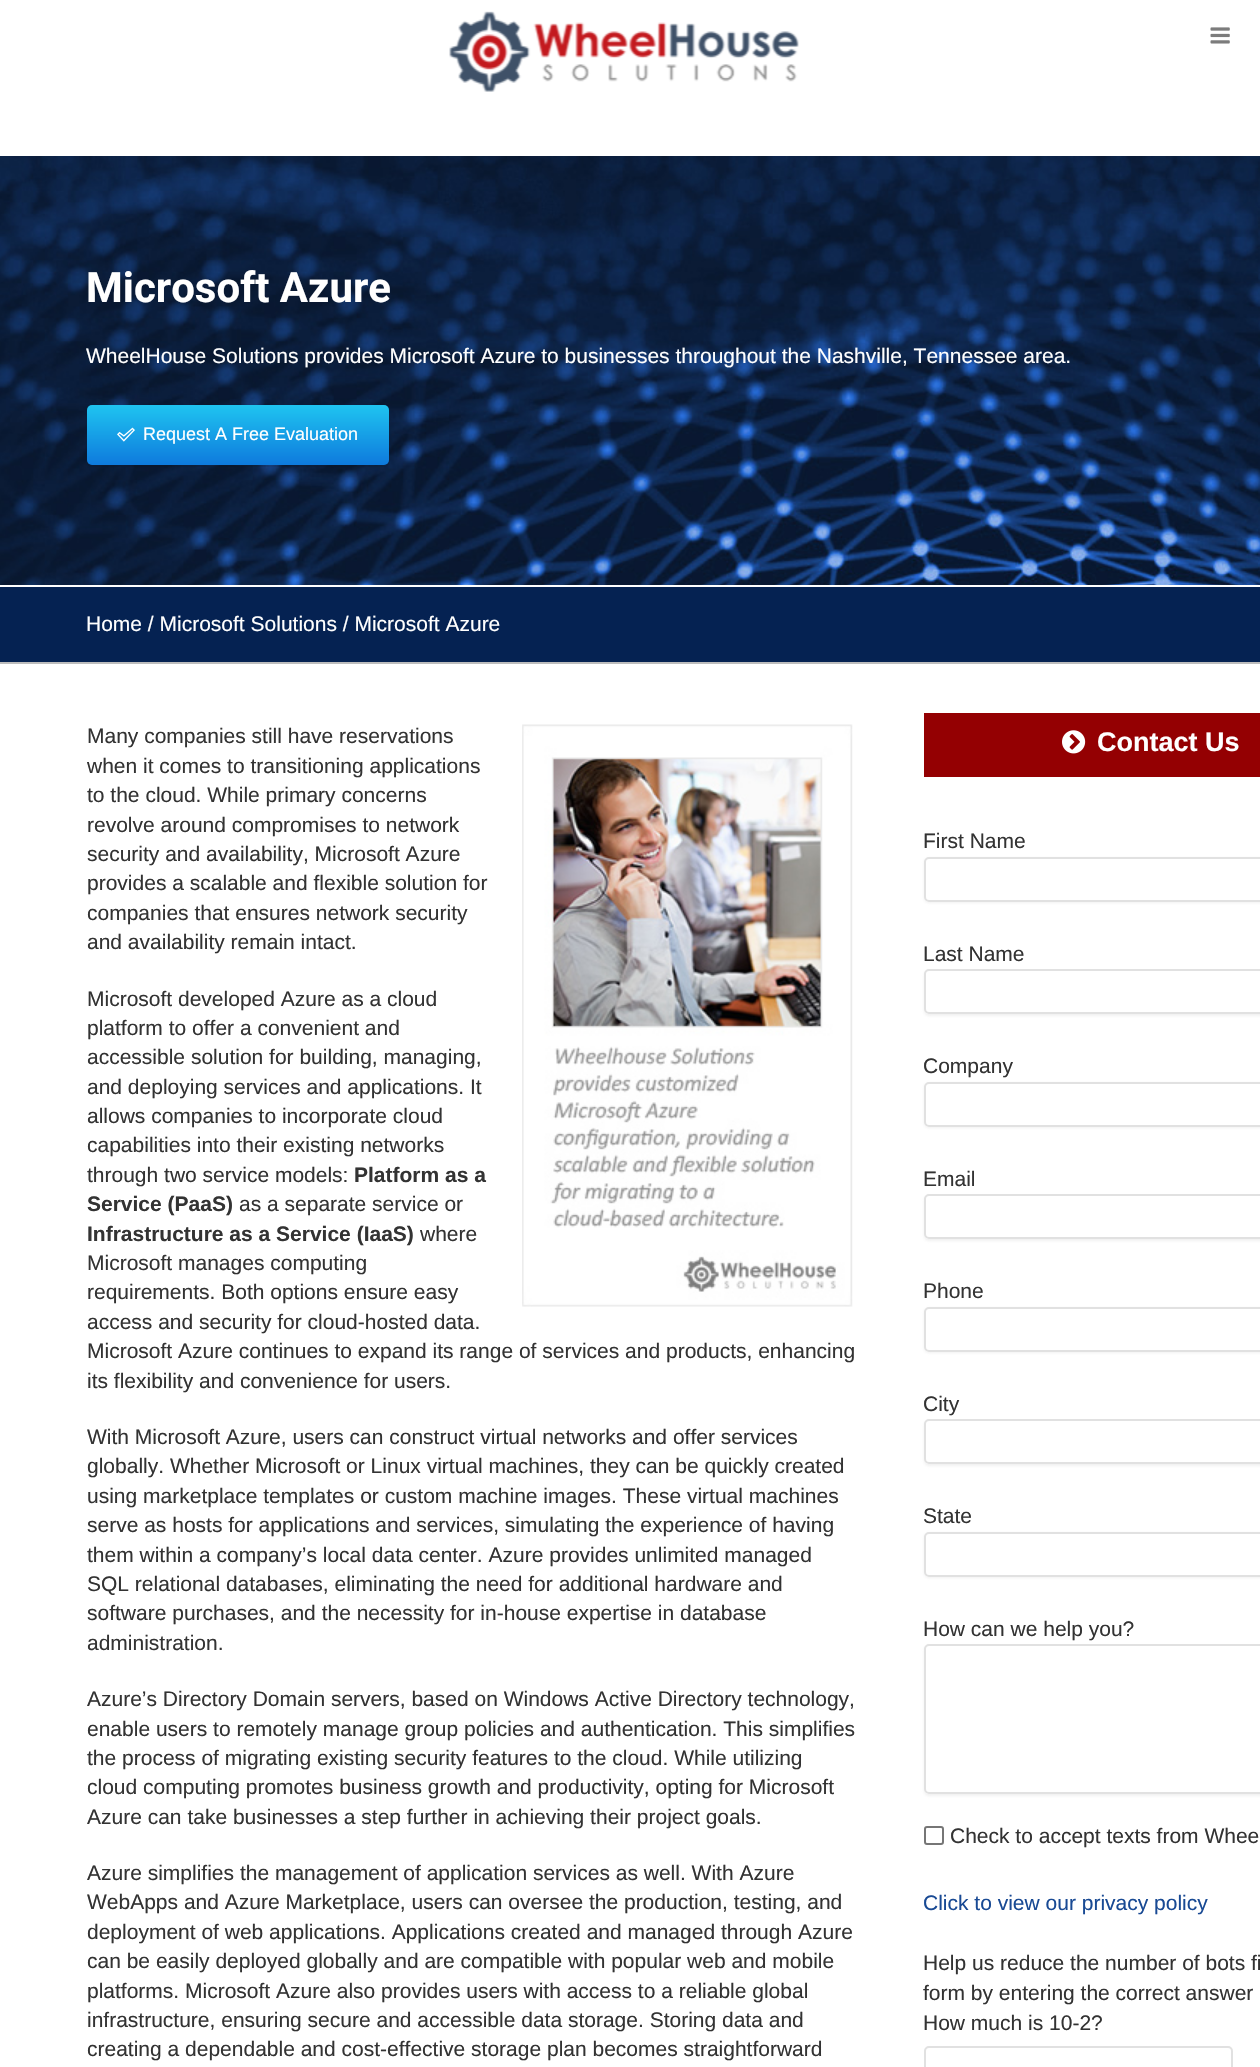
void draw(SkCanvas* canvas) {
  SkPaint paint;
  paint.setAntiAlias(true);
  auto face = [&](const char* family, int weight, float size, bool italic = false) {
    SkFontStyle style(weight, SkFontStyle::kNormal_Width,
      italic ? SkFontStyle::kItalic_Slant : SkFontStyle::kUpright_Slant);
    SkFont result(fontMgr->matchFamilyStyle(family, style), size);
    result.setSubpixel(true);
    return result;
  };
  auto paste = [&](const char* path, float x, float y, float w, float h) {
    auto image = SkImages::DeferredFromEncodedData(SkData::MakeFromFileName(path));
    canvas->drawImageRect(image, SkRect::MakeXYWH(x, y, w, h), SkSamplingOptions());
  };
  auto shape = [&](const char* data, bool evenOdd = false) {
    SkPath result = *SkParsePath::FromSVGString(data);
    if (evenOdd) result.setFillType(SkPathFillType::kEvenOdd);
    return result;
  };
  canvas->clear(0xffffffff);
  paste("img/1.png", 1210, 27, 20, 17);
  paste("img/2.png", 449, 11, 350, 81);
  paste("img/3.png", 0, 156, 1260, 429);
  paint.setColor(0x14000000);
  canvas->drawPath(shape("M87 460V462C87 465 89 467 92 467H384C387 467 389 465 389 462V412L388 410V460C388 463 386 465 384 465H92C89 465 87 463 87 460Z"), paint);
  {
    const SkColor colors[] = {0xff1fc4f0, 0xff0e7add};
    const float stops[] = {0, 1};
    const SkPoint ends[] = {{238, 405}, {238, 465}};
    paint.setShader(SkGradientShader::MakeLinear(ends, colors, stops, 2, SkTileMode::kClamp));
    paint.setAlpha(255);
  }
  canvas->drawRoundRect(SkRect::MakeXYWH(87, 405, 302, 60), 5, 5, paint);
  paste("img/4.png", 117, 427, 18, 15);
  paint.setShader(nullptr);
  paint.setColor(0xff052252);
  canvas->drawRect(SkRect::MakeXYWH(0, 587, 1260, 75), paint);
  paint.setColor(0xffbdbdbd);
  canvas->drawRect(SkRect::MakeXYWH(0, 662, 1260, 2), paint);
  paste("img/5.png", 522, 724, 331, 583);
  paint.setColor(0xff940002);
  canvas->drawRect(SkRect::MakeXYWH(924, 713, 336, 64), paint);
  paste("img/6.png", 1062, 730, 24, 24);
  paint.setColor(0x33b4b4b4);
  paint.setMaskFilter(SkMaskFilter::MakeBlur(kNormal_SkBlurStyle, 1.5f));
  canvas->drawRoundRect(SkRect::MakeXYWH(924, 858, 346, 45), 5, 5, paint);
  paint.setMaskFilter(nullptr);
  paint.setColor(0xffffffff);
  canvas->drawPath(shape("M929 857H1260V902H929C926 902 924 900 924 897V862C924 859 926 857 929 857Z"), paint);
  paint.setStroke(true);
  paint.setStrokeWidth(2);
  paint.setColor(0xffe1e1e1);
  canvas->drawRoundRect(SkRect::MakeXYWH(925, 858, 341, 43), 4, 4, paint);
  paint.setStroke(false);
  paint.setColor(0x33b4b4b4);
  paint.setMaskFilter(SkMaskFilter::MakeBlur(kNormal_SkBlurStyle, 1.5f));
  canvas->drawRoundRect(SkRect::MakeXYWH(924, 971, 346, 45), 5, 5, paint);
  paint.setMaskFilter(nullptr);
  paint.setColor(0xffffffff);
  canvas->drawPath(shape("M929 969H1260V1014H929C926 1014 924 1012 924 1009V974C924 971 926 969 929 969Z"), paint);
  paint.setStroke(true);
  paint.setColor(0xffe1e1e1);
  canvas->drawRoundRect(SkRect::MakeXYWH(925, 970, 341, 43), 4, 4, paint);
  paint.setStroke(false);
  paint.setColor(0x33b4b4b4);
  paint.setMaskFilter(SkMaskFilter::MakeBlur(kNormal_SkBlurStyle, 1.5f));
  canvas->drawRoundRect(SkRect::MakeXYWH(924, 1083, 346, 45), 5, 5, paint);
  paint.setMaskFilter(nullptr);
  paint.setColor(0xffffffff);
  canvas->drawPath(shape("M929 1082H1260V1127H929C926 1127 924 1125 924 1122V1087C924 1084 926 1082 929 1082Z"), paint);
  paint.setStroke(true);
  paint.setColor(0xffe1e1e1);
  canvas->drawRoundRect(SkRect::MakeXYWH(925, 1083, 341, 43), 4, 4, paint);
  paint.setStroke(false);
  paint.setColor(0x33b4b4b4);
  paint.setMaskFilter(SkMaskFilter::MakeBlur(kNormal_SkBlurStyle, 1.5f));
  canvas->drawRoundRect(SkRect::MakeXYWH(924, 1196, 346, 45), 5, 5, paint);
  paint.setMaskFilter(nullptr);
  paint.setColor(0xffffffff);
  canvas->drawPath(shape("M929 1194H1260V1239H929C926 1239 924 1237 924 1234V1199C924 1196 926 1194 929 1194Z"), paint);
  paint.setStroke(true);
  paint.setColor(0xffe1e1e1);
  canvas->drawRoundRect(SkRect::MakeXYWH(925, 1195, 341, 43), 4, 4, paint);
  paint.setStroke(false);
  paint.setColor(0x33b4b4b4);
  paint.setMaskFilter(SkMaskFilter::MakeBlur(kNormal_SkBlurStyle, 1.5f));
  canvas->drawRoundRect(SkRect::MakeXYWH(924, 1308, 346, 45), 5, 5, paint);
  paint.setMaskFilter(nullptr);
  paint.setColor(0xffffffff);
  canvas->drawPath(shape("M929 1307H1260V1352H929C926 1352 924 1350 924 1347V1312C924 1309 926 1307 929 1307Z"), paint);
  paint.setStroke(true);
  paint.setColor(0xffe1e1e1);
  canvas->drawRoundRect(SkRect::MakeXYWH(925, 1308, 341, 43), 4, 4, paint);
  paint.setStroke(false);
  paint.setColor(0x33b4b4b4);
  paint.setMaskFilter(SkMaskFilter::MakeBlur(kNormal_SkBlurStyle, 1.5f));
  canvas->drawRoundRect(SkRect::MakeXYWH(924, 1421, 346, 45), 5, 5, paint);
  paint.setMaskFilter(nullptr);
  paint.setColor(0xffffffff);
  canvas->drawPath(shape("M929 1419H1260V1464H929C926 1464 924 1462 924 1459V1424C924 1421 926 1419 929 1419Z"), paint);
  paint.setStroke(true);
  paint.setColor(0xffe1e1e1);
  canvas->drawRoundRect(SkRect::MakeXYWH(925, 1420, 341, 43), 4, 4, paint);
  paint.setStroke(false);
  paint.setColor(0x33b4b4b4);
  paint.setMaskFilter(SkMaskFilter::MakeBlur(kNormal_SkBlurStyle, 1.5f));
  canvas->drawRoundRect(SkRect::MakeXYWH(924, 1533, 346, 45), 5, 5, paint);
  paint.setMaskFilter(nullptr);
  paint.setColor(0xffffffff);
  canvas->drawPath(shape("M929 1532H1260V1577H929C926 1577 924 1575 924 1572V1537C924 1534 926 1532 929 1532Z"), paint);
  paint.setStroke(true);
  paint.setColor(0xffe1e1e1);
  canvas->drawRoundRect(SkRect::MakeXYWH(925, 1533, 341, 43), 4, 4, paint);
  paint.setStroke(false);
  paint.setColor(0x33b4b4b4);
  paint.setMaskFilter(SkMaskFilter::MakeBlur(kNormal_SkBlurStyle, 1.5f));
  canvas->drawRoundRect(SkRect::MakeXYWH(924, 1646, 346, 150), 5, 5, paint);
  paint.setMaskFilter(nullptr);
  paint.setColor(0xffffffff);
  canvas->drawPath(shape("M929 1644H1260V1794H929C926 1794 924 1792 924 1789V1649C924 1646 926 1644 929 1644Z"), paint);
  paint.setStroke(true);
  paint.setColor(0xffe1e1e1);
  canvas->drawRoundRect(SkRect::MakeXYWH(925, 1645, 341, 148), 4, 4, paint);
  paint.setColor(0xff767676);
  canvas->drawRoundRect(SkRect::MakeXYWH(925, 1827, 18, 17), 2, 2, paint);
  paint.setColor(0xffe1e1e1);
  canvas->drawRoundRect(SkRect::MakeXYWH(925, 2047, 307, 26), 4, 4, paint);
  auto f0 = face("Roboto", 700, 42);
  paint.setStroke(false);
  paint.setColor(0xffffffff);
  canvas->drawString("Microsoft Azure", 86, 302, f0, paint);
  auto f1 = face("Liberation Sans", 400, 21);
  canvas->drawString("WheelHouse Solutions provides Microsoft Azure to businesses throughout the Nashville, Tennessee area.", 86, 363, f1, paint);
  auto f2 = face("Liberation Sans", 400, 18);
  canvas->drawString("Request A Free Evaluation", 143, 440, f2, paint);
  canvas->drawString("Home / Microsoft Solutions / Microsoft Azure", 86, 631, f1, paint);
  paint.setColor(0xff333333);
  {
    const struct { const char* s; float x, y; } items[] = {
      {"Many companies still have reservations", 87, 743},
      {"when it comes to transitioning applications", 87, 773},
      {"to the cloud. While primary concerns", 87, 802},
      {"revolve around compromises to network", 87, 832},
      {"security and availability, Microsoft Azure", 87, 861},
      {"provides a scalable and flexible solution for", 87, 890},
      {"companies that ensures network security", 87, 920},
      {"and availability remain intact.", 87, 949},
      {"Microsoft developed Azure as a cloud", 87, 1006},
      {"platform to offer a convenient and", 87, 1035},
      {"accessible solution for building, managing,", 87, 1064},
      {"and deploying services and applications. It", 87, 1094},
      {"allows companies to incorporate cloud", 87, 1123},
      {"capabilities into their existing networks", 87, 1152},
      {"through two service models:", 87, 1182},
    };
    for (auto [s, x, y] : items) {
      canvas->drawString(s, x, y, f1, paint);
    }
  }
  auto f3 = face("Liberation Sans", 700, 21);
  canvas->drawString("Platform as a", 354, 1182, f3, paint);
  canvas->drawString("Service (PaaS)", 87, 1211, f3, paint);
  canvas->drawString("as a separate service or", 239, 1211, f1, paint);
  canvas->drawString("Infrastructure as a Service (IaaS)", 87, 1241, f3, paint);
  {
    const struct { const char* s; float x, y; } items[] = {
      {"where", 420, 1241},
      {"Microsoft manages computing", 87, 1270},
      {"requirements. Both options ensure easy", 87, 1299},
      {"access and security for cloud-hosted data.", 87, 1329},
      {"Microsoft Azure continues to expand its range of services and products, enhancing", 87, 1358},
      {"its flexibility and convenience for users.", 87, 1388},
      {"With Microsoft Azure, users can construct virtual networks and offer services", 87, 1444},
      {"globally. Whether Microsoft or Linux virtual machines, they can be quickly created", 87, 1473},
      {"using marketplace templates or custom machine images. These virtual machines", 87, 1503},
      {"serve as hosts for applications and services, simulating the experience of having", 87, 1532},
      {"them within a company’s local data center. Azure provides unlimited managed", 87, 1562},
      {"SQL relational databases, eliminating the need for additional hardware and", 87, 1591},
      {"software purchases, and the necessity for in-house expertise in database", 87, 1620},
      {"administration.", 87, 1650},
      {"Azure’s Directory Domain servers, based on Windows Active Directory technology,", 87, 1706},
      {"enable users to remotely manage group policies and authentication. This simplifies", 87, 1736},
      {"the process of migrating existing security features to the cloud. While utilizing", 87, 1765},
      {"cloud computing promotes business growth and productivity, opting for Microsoft", 87, 1794},
      {"Azure can take businesses a step further in achieving their project goals.", 87, 1824},
      {"Azure simplifies the management of application services as well. With Azure", 87, 1880},
      {"WebApps and Azure Marketplace, users can oversee the production, testing, and", 87, 1909},
      {"deployment of web applications. Applications created and managed through Azure", 87, 1939},
      {"can be easily deployed globally and are compatible with popular web and mobile", 87, 1968},
      {"platforms. Microsoft Azure also provides users with access to a reliable global", 87, 1998},
      {"infrastructure, ensuring secure and accessible data storage. Storing data and", 87, 2027},
      {"creating a dependable and cost-effective storage plan becomes straightforward", 87, 2056},
    };
    for (auto [s, x, y] : items) {
      canvas->drawString(s, x, y, f1, paint);
    }
  }
  auto f4 = face("Liberation Sans", 700, 27);
  paint.setColor(0xffffffff);
  canvas->drawString("Contact Us", 1097, 751, f4, paint);
  paint.setColor(0xff333333);
  {
    const struct { const char* s; float x, y; } items[] = {
      {"First Name", 923, 848},
      {"Last Name", 923, 961},
      {"Company", 923, 1073},
      {"Email", 923, 1186},
      {"Phone", 923, 1298},
      {"City", 923, 1411},
      {"State", 923, 1523},
      {"How can we help you?", 923, 1636},
      {"Check to accept texts from Whee", 950, 1843},
    };
    for (auto [s, x, y] : items) {
      canvas->drawString(s, x, y, f1, paint);
    }
  }
  paint.setColor(0xff194a94);
  canvas->drawString("Click to view our privacy policy", 923, 1910, f1, paint);
  paint.setColor(0xff333333);
  {
    const struct { const char* s; float x, y; } items[] = {
      {"Help us reduce the number of bots fi", 923, 1970},
      {"form by entering the correct answer", 923, 2000},
      {"How much is 10-2?", 923, 2030},
    };
    for (auto [s, x, y] : items) {
      canvas->drawString(s, x, y, f1, paint);
    }
  }
}
